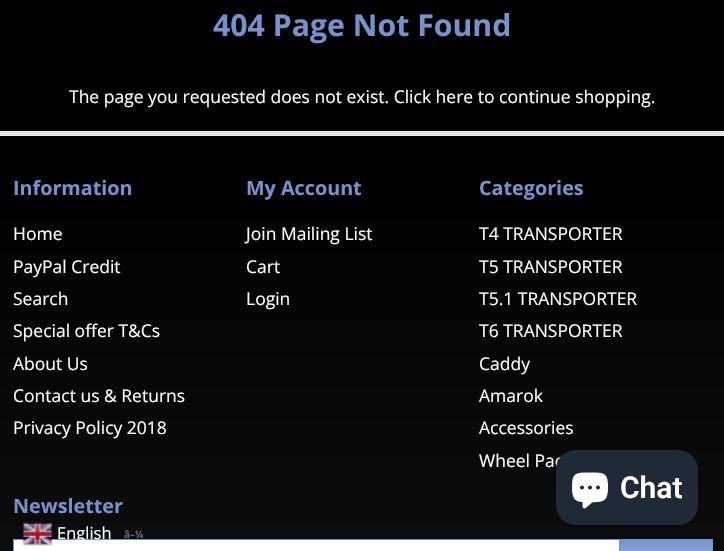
void draw(SkCanvas* canvas) {
  SkPaint paint;
  paint.setAntiAlias(true);
  auto face = [&](const char* family, int weight, float size, bool italic = false) {
    SkFontStyle style(weight, SkFontStyle::kNormal_Width,
      italic ? SkFontStyle::kItalic_Slant : SkFontStyle::kUpright_Slant);
    SkFont result(fontMgr->matchFamilyStyle(family, style), size);
    result.setSubpixel(true);
    return result;
  };
  auto paste = [&](const char* path, float x, float y, float w, float h) {
    auto image = SkImages::DeferredFromEncodedData(SkData::MakeFromFileName(path));
    canvas->drawImageRect(image, SkRect::MakeXYWH(x, y, w, h), SkSamplingOptions());
  };
  canvas->clear(0xff000000);
  {
    const SkColor colors[] = {0xff000000, 0xff151515};
    const float stops[] = {0, 1};
    const SkPoint ends[] = {{362, 136}, {363, 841}};
    paint.setShader(SkGradientShader::MakeLinear(ends, colors, stops, 2, SkTileMode::kClamp));
    paint.setAlpha(255);
  }
  canvas->drawRect(SkRect::MakeXYWH(0, 219, 724, 332), paint);
  paint.setShader(nullptr);
  {
    const struct { float x, y, w, h; SkColor color; } items[] = {
      {0, 131, 724, 5, 0xffe6e6e6},
      {14, 540, 605, 11, 0xffffffff},
      {13, 539, 606, 1, 0xff7592cd},
      {13, 539, 1, 12, 0xff7592cd},
    };
    for (auto [x, y, w, h, color] : items) {
      paint.setColor(color);
      canvas->drawRect(SkRect::MakeXYWH(x, y, w, h), paint);
    }
  }
  {
    const SkColor colors[] = {0xff7693cd, 0xffc8d5f1};
    const float stops[] = {0, 1};
    const SkPoint ends[] = {{666, 540}, {666, 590}};
    paint.setShader(SkGradientShader::MakeLinear(ends, colors, stops, 2, SkTileMode::kClamp));
    paint.setAlpha(255);
  }
  canvas->drawRect(SkRect::MakeXYWH(620, 540, 92, 11), paint);
  paint.setStroke(true);
  paint.setStrokeWidth(1);
  paint.setShader(nullptr);
  paint.setColor(0xff7592cd);
  canvas->drawRect(SkRect::MakeXYWH(619.5f, 539.5f, 93, 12), paint);
  paint.setStroke(false);
  paint.setColor(0x26000000);
  paint.setMaskFilter(SkMaskFilter::MakeBlur(kNormal_SkBlurStyle, 3));
  canvas->drawRoundRect(SkRect::MakeXYWH(556, 450, 142, 75), 20, 20, paint);
  paint.setMaskFilter(nullptr);
  paste("img/2.png", 22, 522, 31, 24);
  auto f0 = face("Open Sans", 700, 30.25f);
  paint.setColor(0xff7592cd);
  canvas->drawString("404 Page Not Found", 213, 36, f0, paint);
  auto f1 = face("Open Sans", 400, 17.5f);
  paint.setColor(0xffffffff);
  canvas->drawString("The page you requested does not exist. Click here to continue shopping.", 69, 103, f1, paint);
  auto f2 = face("Open Sans", 700, 19.75f);
  paint.setColor(0xff7592cd);
  canvas->drawString("Information", 13, 195, f2, paint);
  paint.setColor(0xffffffff);
  {
    const struct { const char* s; float x, y; } items[] = {
      {"Home", 13, 240},
      {"PayPal Credit", 13, 273},
      {"Search", 13, 305},
      {"Special offer T&Cs", 13, 337},
      {"About Us", 13, 370},
      {"Contact us & Returns", 13, 402},
      {"Privacy Policy 2018", 13, 434},
    };
    for (auto [s, x, y] : items) {
      canvas->drawString(s, x, y, f1, paint);
    }
  }
  paint.setColor(0xff7592cd);
  canvas->drawString("My Account", 246, 195, f2, paint);
  paint.setColor(0xffffffff);
  {
    const struct { const char* s; float x, y; } items[] = {
      {"Join Mailing List", 246, 240},
      {"Cart", 246, 273},
      {"Login", 246, 305},
    };
    for (auto [s, x, y] : items) {
      canvas->drawString(s, x, y, f1, paint);
    }
  }
  paint.setColor(0xff7592cd);
  canvas->drawString("Categories", 479, 195, f2, paint);
  paint.setColor(0xffffffff);
  {
    const struct { const char* s; float x, y; } items[] = {
      {"T4 TRANSPORTER", 479, 240},
      {"T5 TRANSPORTER", 479, 273},
      {"T5.1 TRANSPORTER", 479, 305},
      {"T6 TRANSPORTER", 479, 337},
      {"Caddy", 479, 370},
      {"Amarok", 479, 402},
      {"Accessories", 479, 434},
      {"Wheel Pac", 479, 467},
    };
    for (auto [s, x, y] : items) {
      canvas->drawString(s, x, y, f1, paint);
    }
  }
  paint.setColor(0xff7592cd);
  canvas->drawString("Newsletter", 13, 513, f2, paint);
  paint.setColor(0xff202a36);
  canvas->drawRoundRect(SkRect::MakeXYWH(556, 450, 142, 75), 20, 20, paint);
  paste("img/1.png", 572, 472, 36, 37);
  auto f3 = face("Roboto", 600, 30);
  paint.setColor(0xffffffff);
  canvas->drawString("Chat", 620, 498, f3, paint);
  auto f4 = face("Open Sans", 400, 16.5f);
  canvas->drawString("English", 57, 539, f4, paint);
  auto f5 = face("Open Sans", 700, 10);
  paint.setColor(0xff666666);
  canvas->drawString("â–¼", 124, 538, f5, paint);
}
